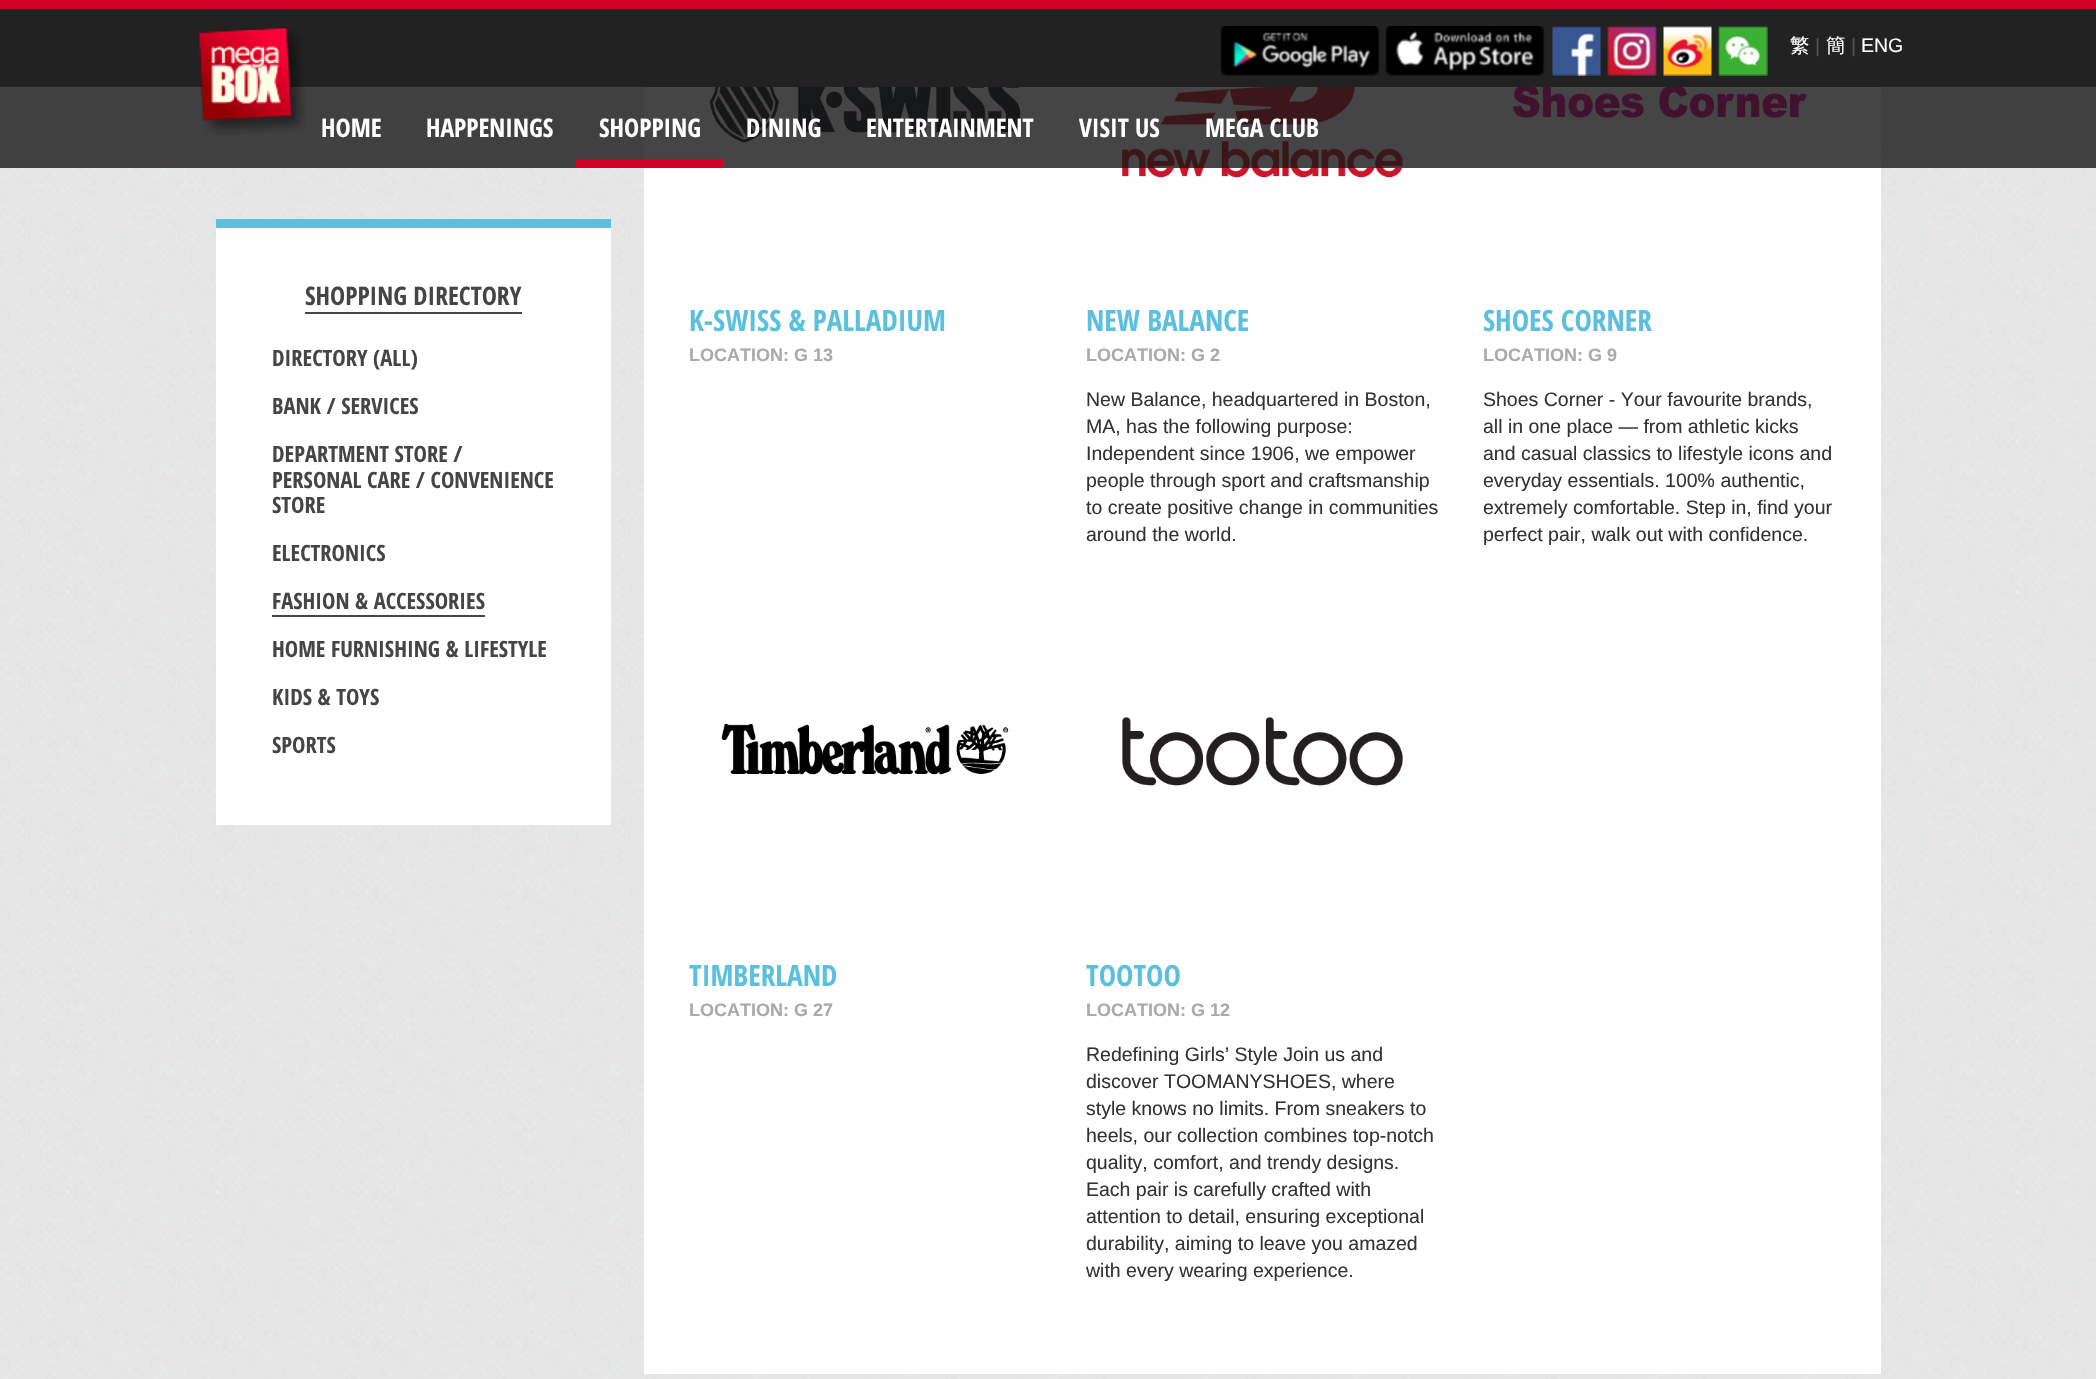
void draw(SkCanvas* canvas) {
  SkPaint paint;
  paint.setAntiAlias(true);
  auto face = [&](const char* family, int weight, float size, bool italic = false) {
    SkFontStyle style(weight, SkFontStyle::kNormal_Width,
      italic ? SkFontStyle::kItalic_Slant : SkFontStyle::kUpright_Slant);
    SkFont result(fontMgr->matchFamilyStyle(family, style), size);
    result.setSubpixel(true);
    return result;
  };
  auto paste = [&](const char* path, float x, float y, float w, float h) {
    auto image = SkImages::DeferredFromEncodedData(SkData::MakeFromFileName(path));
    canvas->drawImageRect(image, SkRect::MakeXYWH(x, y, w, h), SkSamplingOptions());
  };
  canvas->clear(0xffffffff);
  paste("img/1.png", 0, 87, 2096, 1292);
  paint.setColor(0xff222222);
  canvas->drawRect(SkRect::MakeXYWH(0, 9, 2096, 78), paint);
  paint.setColor(0xffffffff);
  canvas->drawRect(SkRect::MakeXYWH(644, 87, 1237, 1287), paint);
  paste("img/9.png", 709, 87, 312, 56);
  paste("img/10.png", 1122, 87, 282, 91);
  paste("img/11.png", 1513, 87, 294, 31);
  paint.setColor(0xcc161616);
  canvas->drawRect(SkRect::MakeXYWH(0, 87, 2096, 81), paint);
  paste("img/2.png", 198, 26, 108, 109);
  paint.setColor(0xffd00024);
  canvas->drawRect(SkRect::MakeXYWH(0, 0, 2096, 9), paint);
  paste("img/3.png", 1220, 26, 160, 50);
  paste("img/4.png", 1385, 26, 160, 50);
  paste("img/5.png", 1552, 26, 49, 50);
  paste("img/6.png", 1607, 26, 50, 50);
  paste("img/7.png", 1663, 26, 49, 50);
  paste("img/8.png", 1718, 26, 50, 50);
  {
    const struct { float x, y, w, h; SkColor color; } items[] = {
      {576, 159, 147, 9, 0xffd00024},
      {216, 228, 395, 597, 0xffffffff},
      {216, 219, 395, 9, 0xff5bc0de},
      {305, 312, 217, 2, 0xff454545},
      {272, 615, 213, 2, 0xff454545},
    };
    for (auto [x, y, w, h, color] : items) {
      paint.setColor(color);
      canvas->drawRect(SkRect::MakeXYWH(x, y, w, h), paint);
    }
  }
  paste("img/12.png", 721, 723, 288, 52);
  paste("img/13.png", 1122, 717, 281, 69);
  auto f0 = face("WenQuanYi Zen Hei", 500, 19.5f);
  paint.setColor(0xffffffff);
  canvas->drawString("繁", 1790, 52, f0, paint);
  auto f1 = face("Liberation Sans", 400, 19.5f);
  paint.setColor(0xff555555);
  canvas->drawString("|", 1815, 52, f1, paint);
  paint.setColor(0xffffffff);
  canvas->drawString("簡", 1826, 52, f0, paint);
  paint.setColor(0xff555555);
  canvas->drawString("|", 1851, 52, f1, paint);
  paint.setColor(0xffffffff);
  canvas->drawString("ENG", 1861, 52, f1, paint);
  auto f2 = face("Open Sans Condensed", 700, 25.5f);
  {
    const struct { const char* s; float x, y; } items[] = {
      {"HOME", 321, 137},
      {"HAPPENINGS", 426, 137},
      {"SHOPPING", 599, 137},
      {"DINING", 746, 137},
      {"ENTERTAINMENT", 866, 137},
      {"VISIT US", 1079, 137},
      {"MEGA CLUB", 1205, 137},
    };
    for (auto [s, x, y] : items) {
      canvas->drawString(s, x, y, f2, paint);
    }
  }
  paint.setColor(0xff454545);
  canvas->drawString("SHOPPING DIRECTORY", 305, 305, f2, paint);
  auto f3 = face("Open Sans Condensed", 700, 22.5f);
  {
    const struct { const char* s; float x, y; } items[] = {
      {"DIRECTORY (ALL)", 272, 366},
      {"BANK / SERVICES", 272, 414},
      {"DEPARTMENT STORE /", 272, 462},
      {"PERSONAL CARE / CONVENIENCE", 272, 488},
      {"STORE", 272, 513},
      {"ELECTRONICS", 272, 561},
      {"FASHION & ACCESSORIES", 272, 609},
      {"HOME FURNISHING & LIFESTYLE", 272, 657},
      {"KIDS & TOYS", 272, 705},
      {"SPORTS", 272, 753},
    };
    for (auto [s, x, y] : items) {
      canvas->drawString(s, x, y, f3, paint);
    }
  }
  auto f4 = face("Open Sans Condensed", 700, 29.25f);
  paint.setColor(0xff5bc0de);
  canvas->drawString("K-SWISS & PALLADIUM", 689, 331, f4, paint);
  auto f5 = face("Liberation Sans", 700, 18);
  paint.setColor(0xffaaaaaa);
  canvas->drawString("LOCATION: G 13", 689, 361, f5, paint);
  paint.setColor(0xff5bc0de);
  canvas->drawString("NEW BALANCE", 1086, 331, f4, paint);
  paint.setColor(0xffaaaaaa);
  canvas->drawString("LOCATION: G 2", 1086, 361, f5, paint);
  paint.setColor(0xff333333);
  {
    const struct { const char* s; float x, y; } items[] = {
      {"New Balance, headquartered in Boston,", 1086, 406},
      {"MA, has the following purpose:", 1086, 433},
      {"Independent since 1906, we empower", 1086, 460},
      {"people through sport and craftsmanship", 1086, 487},
      {"to create positive change in communities", 1086, 514},
      {"around the world.", 1086, 541},
    };
    for (auto [s, x, y] : items) {
      canvas->drawString(s, x, y, f1, paint);
    }
  }
  paint.setColor(0xff5bc0de);
  canvas->drawString("SHOES CORNER", 1483, 331, f4, paint);
  paint.setColor(0xffaaaaaa);
  canvas->drawString("LOCATION: G 9", 1483, 361, f5, paint);
  paint.setColor(0xff333333);
  {
    const struct { const char* s; float x, y; } items[] = {
      {"Shoes Corner - Your favourite brands,", 1483, 406},
      {"all in one place — from athletic kicks", 1483, 433},
      {"and casual classics to lifestyle icons and", 1483, 460},
      {"everyday essentials. 100% authentic,", 1483, 487},
      {"extremely comfortable. Step in, find your", 1483, 514},
      {"perfect pair, walk out with confidence.", 1483, 541},
    };
    for (auto [s, x, y] : items) {
      canvas->drawString(s, x, y, f1, paint);
    }
  }
  paint.setColor(0xff5bc0de);
  canvas->drawString("TIMBERLAND", 689, 986, f4, paint);
  paint.setColor(0xffaaaaaa);
  canvas->drawString("LOCATION: G 27", 689, 1016, f5, paint);
  paint.setColor(0xff5bc0de);
  canvas->drawString("TOOTOO", 1086, 986, f4, paint);
  paint.setColor(0xffaaaaaa);
  canvas->drawString("LOCATION: G 12", 1086, 1016, f5, paint);
  paint.setColor(0xff333333);
  {
    const struct { const char* s; float x, y; } items[] = {
      {"Redefining Girls’ Style Join us and", 1086, 1061},
      {"discover TOOMANYSHOES, where", 1086, 1088},
      {"style knows no limits. From sneakers to", 1086, 1115},
      {"heels, our collection combines top-notch", 1086, 1142},
      {"quality, comfort, and trendy designs.", 1086, 1169},
      {"Each pair is carefully crafted with", 1086, 1196},
      {"attention to detail, ensuring exceptional", 1086, 1223},
      {"durability, aiming to leave you amazed", 1086, 1250},
      {"with every wearing experience.", 1086, 1277},
    };
    for (auto [s, x, y] : items) {
      canvas->drawString(s, x, y, f1, paint);
    }
  }
}
